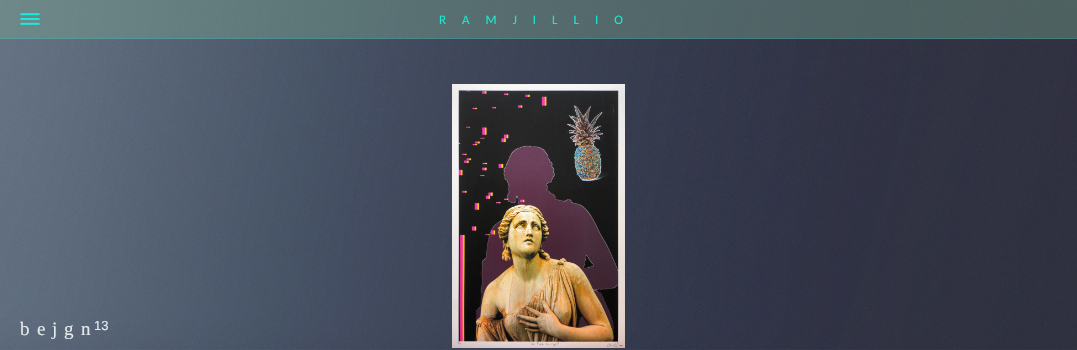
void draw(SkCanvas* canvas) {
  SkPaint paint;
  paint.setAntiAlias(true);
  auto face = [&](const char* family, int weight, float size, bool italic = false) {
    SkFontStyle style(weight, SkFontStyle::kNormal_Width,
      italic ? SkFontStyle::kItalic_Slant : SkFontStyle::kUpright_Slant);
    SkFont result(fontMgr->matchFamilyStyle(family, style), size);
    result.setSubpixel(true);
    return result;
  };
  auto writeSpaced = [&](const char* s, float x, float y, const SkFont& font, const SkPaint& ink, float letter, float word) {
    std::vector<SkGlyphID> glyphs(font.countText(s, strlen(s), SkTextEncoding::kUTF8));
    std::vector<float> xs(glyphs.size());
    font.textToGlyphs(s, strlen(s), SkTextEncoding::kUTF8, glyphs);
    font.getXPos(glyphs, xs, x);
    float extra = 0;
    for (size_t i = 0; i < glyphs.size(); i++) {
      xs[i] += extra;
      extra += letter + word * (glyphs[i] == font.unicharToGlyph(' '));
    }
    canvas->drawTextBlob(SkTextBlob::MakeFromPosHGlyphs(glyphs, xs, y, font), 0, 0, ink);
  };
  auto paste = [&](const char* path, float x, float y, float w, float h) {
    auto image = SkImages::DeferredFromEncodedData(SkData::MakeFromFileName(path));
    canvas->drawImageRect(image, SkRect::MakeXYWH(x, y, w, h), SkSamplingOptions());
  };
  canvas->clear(0xffffffff);
  paste("img/1.png", 0, 0, 1077, 350);
  paint.setColor(0x667ba891);
  canvas->drawRect(SkRect::MakeXYWH(0, 0, 1077, 39), paint);
  paste("img/2.png", 20, 13, 20, 12);
  paint.setColor(0x3317ebdd);
  canvas->drawRect(SkRect::MakeXYWH(0, 38, 1077, 1), paint);
  paste("img/3.png", 452, 84, 173, 264);
  auto f0 = face("Carlito", 400, 13);
  paint.setColor(0xff19e8d0);
  writeSpaced("RAMJILLIO", 439, 24, f0, paint, 16, 0);
  auto f1 = face("Liberation Serif", 400, 19);
  paint.setColor(0xffe4e9eb);
  {
    const struct { const char* s; float x, y; } items[] = {
      {"b", 20, 335},
      {"e", 37, 335},
      {"j", 52, 335},
      {"g", 64, 335},
      {"n", 81, 335},
    };
    for (auto [s, x, y] : items) {
      canvas->drawString(s, x, y, f1, paint);
    }
  }
  auto f2 = face("Liberation Sans", 400, 13);
  canvas->drawString("13", 94, 330, f2, paint);
}
